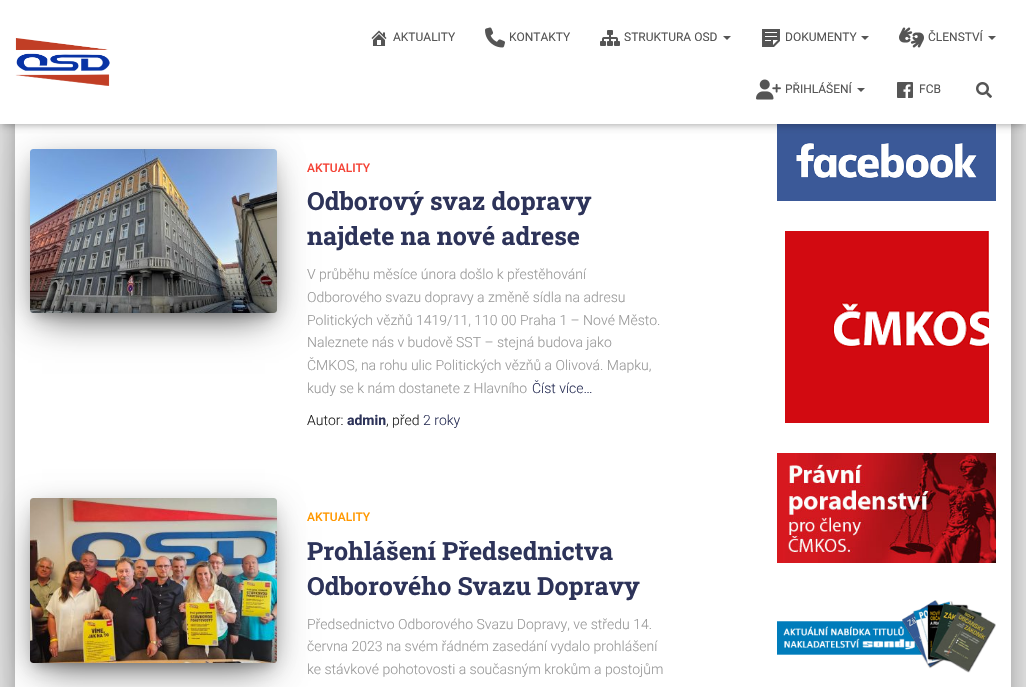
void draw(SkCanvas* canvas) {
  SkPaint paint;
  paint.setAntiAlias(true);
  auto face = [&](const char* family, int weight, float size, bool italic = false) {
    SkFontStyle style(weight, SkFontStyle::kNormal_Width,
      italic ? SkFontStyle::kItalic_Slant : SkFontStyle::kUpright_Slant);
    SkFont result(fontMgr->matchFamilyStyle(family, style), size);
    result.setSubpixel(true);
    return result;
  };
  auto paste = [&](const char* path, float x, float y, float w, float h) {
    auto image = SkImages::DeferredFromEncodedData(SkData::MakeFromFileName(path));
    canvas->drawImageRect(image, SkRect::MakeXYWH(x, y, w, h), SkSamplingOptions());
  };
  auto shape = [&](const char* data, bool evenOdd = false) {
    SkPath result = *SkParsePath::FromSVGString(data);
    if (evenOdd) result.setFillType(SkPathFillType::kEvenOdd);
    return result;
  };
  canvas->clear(0xffe5e5e5);
  paint.setColor(0x33000000);
  paint.setMaskFilter(SkMaskFilter::MakeBlur(kNormal_SkBlurStyle, 5));
  canvas->drawRoundRect(SkRect::MakeXYWH(20, -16, 986, 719), 1, 1, paint);
  paint.setMaskFilter(nullptr);
  paint.setColor(0x1f000000);
  paint.setMaskFilter(SkMaskFilter::MakeBlur(kNormal_SkBlurStyle, 15));
  canvas->drawRoundRect(SkRect::MakeXYWH(10, -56, 1006, 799), 11, 11, paint);
  paint.setMaskFilter(nullptr);
  paint.setColor(0x24000000);
  paint.setMaskFilter(SkMaskFilter::MakeBlur(kNormal_SkBlurStyle, 12));
  canvas->drawRoundRect(SkRect::MakeXYWH(13, -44, 1000, 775), 8, 8, paint);
  paint.setMaskFilter(nullptr);
  paint.setColor(0xffffffff);
  canvas->drawRect(SkRect::MakeXYWH(15, 124, 996, 563), paint);
  paste("img/12.png", 777, 124, 219, 77);
  paint.setColor(0x1a000000);
  paint.setMaskFilter(SkMaskFilter::MakeBlur(kNormal_SkBlurStyle, 2.5f));
  canvas->drawRect(SkRect::MakeXYWH(2, 6, 1022, 120), paint);
  paint.setMaskFilter(nullptr);
  paint.setColor(0x1f000000);
  paint.setMaskFilter(SkMaskFilter::MakeBlur(kNormal_SkBlurStyle, 5));
  canvas->drawRect(SkRect::MakeXYWH(0, 1, 1026, 124), paint);
  paint.setMaskFilter(nullptr);
  paint.setColor(0x6b000000);
  paint.setMaskFilter(SkMaskFilter::MakeBlur(kNormal_SkBlurStyle, 5));
  canvas->drawRect(SkRect::MakeXYWH(6, 7, 1014, 112), paint);
  paint.setMaskFilter(nullptr);
  paint.setColor(0x1f000000);
  paint.setMaskFilter(SkMaskFilter::MakeBlur(kNormal_SkBlurStyle, 12.5f));
  canvas->drawRoundRect(SkRect::MakeXYWH(30, 153, 247, 164), 3, 3, paint);
  paint.setMaskFilter(nullptr);
  paint.setColor(0x8f000000);
  paint.setMaskFilter(SkMaskFilter::MakeBlur(kNormal_SkBlurStyle, 19));
  canvas->drawRect(SkRect::MakeXYWH(42, 177, 223, 140), paint);
  paint.setMaskFilter(nullptr);
  paint.setColor(0xffffffff);
  canvas->drawRect(SkRect::MakeXYWH(0, 0, 1026, 124), paint);
  paste("img/1.png", 15, 38, 95, 48);
  paste("img/2.png", 371, 30, 16, 16);
  paste("img/3.png", 485, 27, 20, 21);
  paste("img/4.png", 600, 30, 20, 16);
  paint.setColor(0xff555555);
  canvas->drawPath(shape("M723 36H731L727 40Z"), paint);
  paste("img/5.png", 762, 29, 18, 18);
  canvas->drawPath(shape("M861 36H869L865 40Z"), paint);
  paste("img/6.png", 899, 27, 25, 21);
  canvas->drawPath(shape("M988 36H996L992 40Z"), paint);
  paste("img/7.png", 756, 79, 25, 21);
  canvas->drawPath(shape("M857 88H865L861 92Z"), paint);
  paste("img/8.png", 897, 82, 16, 16);
  paste("img/9.png", 976, 82, 16, 16);
  paint.setColor(0x33000000);
  paint.setMaskFilter(SkMaskFilter::MakeBlur(kNormal_SkBlurStyle, 5));
  canvas->drawRect(SkRect::MakeXYWH(35, 162, 237, 154), paint);
  paint.setMaskFilter(nullptr);
  paste("img/10.png", 30, 149, 247, 164);
  paint.setMaskFilter(SkMaskFilter::MakeBlur(kNormal_SkBlurStyle, 5));
  canvas->drawRect(SkRect::MakeXYWH(35, 511, 237, 155), paint);
  paint.setMaskFilter(nullptr);
  paint.setColor(0x1f000000);
  paint.setMaskFilter(SkMaskFilter::MakeBlur(kNormal_SkBlurStyle, 12.5f));
  canvas->drawRoundRect(SkRect::MakeXYWH(30, 502, 247, 165), 3, 3, paint);
  paint.setMaskFilter(nullptr);
  paint.setColor(0x8f000000);
  paint.setMaskFilter(SkMaskFilter::MakeBlur(kNormal_SkBlurStyle, 19));
  canvas->drawRect(SkRect::MakeXYWH(42, 526, 223, 141), paint);
  paint.setMaskFilter(nullptr);
  paste("img/11.png", 30, 498, 247, 165);
  paste("img/13.png", 785, 231, 204, 192);
  paste("img/14.png", 777, 453, 219, 110);
  paste("img/15.png", 777, 600, 219, 73);
  auto f0 = face("Roboto", 400, 12);
  paint.setColor(0xff555555);
  {
    const struct { const char* s; float x, y; } items[] = {
      {"AKTUALITY", 393, 41},
      {"KONTAKTY", 509, 41},
      {"STRUKTURA OSD", 624, 41},
      {"DOKUMENTY", 785, 41},
      {"ČLENSTVÍ", 928, 41},
      {"PŘIHLÁŠENÍ", 785, 93},
      {"FCB", 919, 93},
    };
    for (auto [s, x, y] : items) {
      canvas->drawString(s, x, y, f0, paint);
    }
  }
  auto f1 = face("Roboto", 500, 12);
  paint.setColor(0xfff44336);
  canvas->drawString("AKTUALITY", 307, 172, f1, paint);
  auto f2 = face("Roboto Slab", 700, 25);
  paint.setColor(0xff2d3359);
  canvas->drawString("Odborový svaz dopravy", 307, 210, f2, paint);
  canvas->drawString("najdete na nové adrese", 307, 245, f2, paint);
  auto f3 = face("Roboto", 300, 14);
  paint.setColor(0xff999999);
  {
    const struct { const char* s; float x, y; } items[] = {
      {"V průběhu měsíce února došlo k přestěhování", 307, 279},
      {"Odborového svazu dopravy a změně sídla na adresu", 307, 302},
      {"Politických vězňů 1419/11, 110 00 Praha 1 – Nové Město.", 307, 325},
      {"Naleznete nás v budově SST – stejná budova jako", 307, 347},
      {"ČMKOS, na rohu ulic Politických vězňů a Olivová. Mapku,", 307, 370},
      {"kudy se k nám dostanete z Hlavního", 307, 393},
    };
    for (auto [s, x, y] : items) {
      canvas->drawString(s, x, y, f3, paint);
    }
  }
  paint.setColor(0xff2d3359);
  canvas->drawString("Číst více…", 532, 393, f3, paint);
  paint.setColor(0xff212121);
  canvas->drawString("Autor:", 307, 425, f3, paint);
  auto f4 = face("Roboto", 700, 14);
  paint.setColor(0xff2d3359);
  canvas->drawString("admin", 347, 425, f4, paint);
  paint.setColor(0xff212121);
  canvas->drawString(", před", 386, 425, f3, paint);
  paint.setColor(0xff2d3359);
  canvas->drawString("2 roky", 423, 425, f3, paint);
  paint.setColor(0xffff9800);
  canvas->drawString("AKTUALITY", 307, 521, f1, paint);
  paint.setColor(0xff2d3359);
  canvas->drawString("Prohlášení Předsednictva", 307, 560, f2, paint);
  canvas->drawString("Odborového Svazu Dopravy", 307, 595, f2, paint);
  paint.setColor(0xff999999);
  {
    const struct { const char* s; float x, y; } items[] = {
      {"Předsednictvo Odborového Svazu Dopravy, ve středu 14.", 307, 629},
      {"června 2023 na svém řádném zasedání vydalo prohlášení", 307, 651},
      {"ke stávkové pohotovosti a současným krokům a postojům", 307, 674},
    };
    for (auto [s, x, y] : items) {
      canvas->drawString(s, x, y, f3, paint);
    }
  }
}
